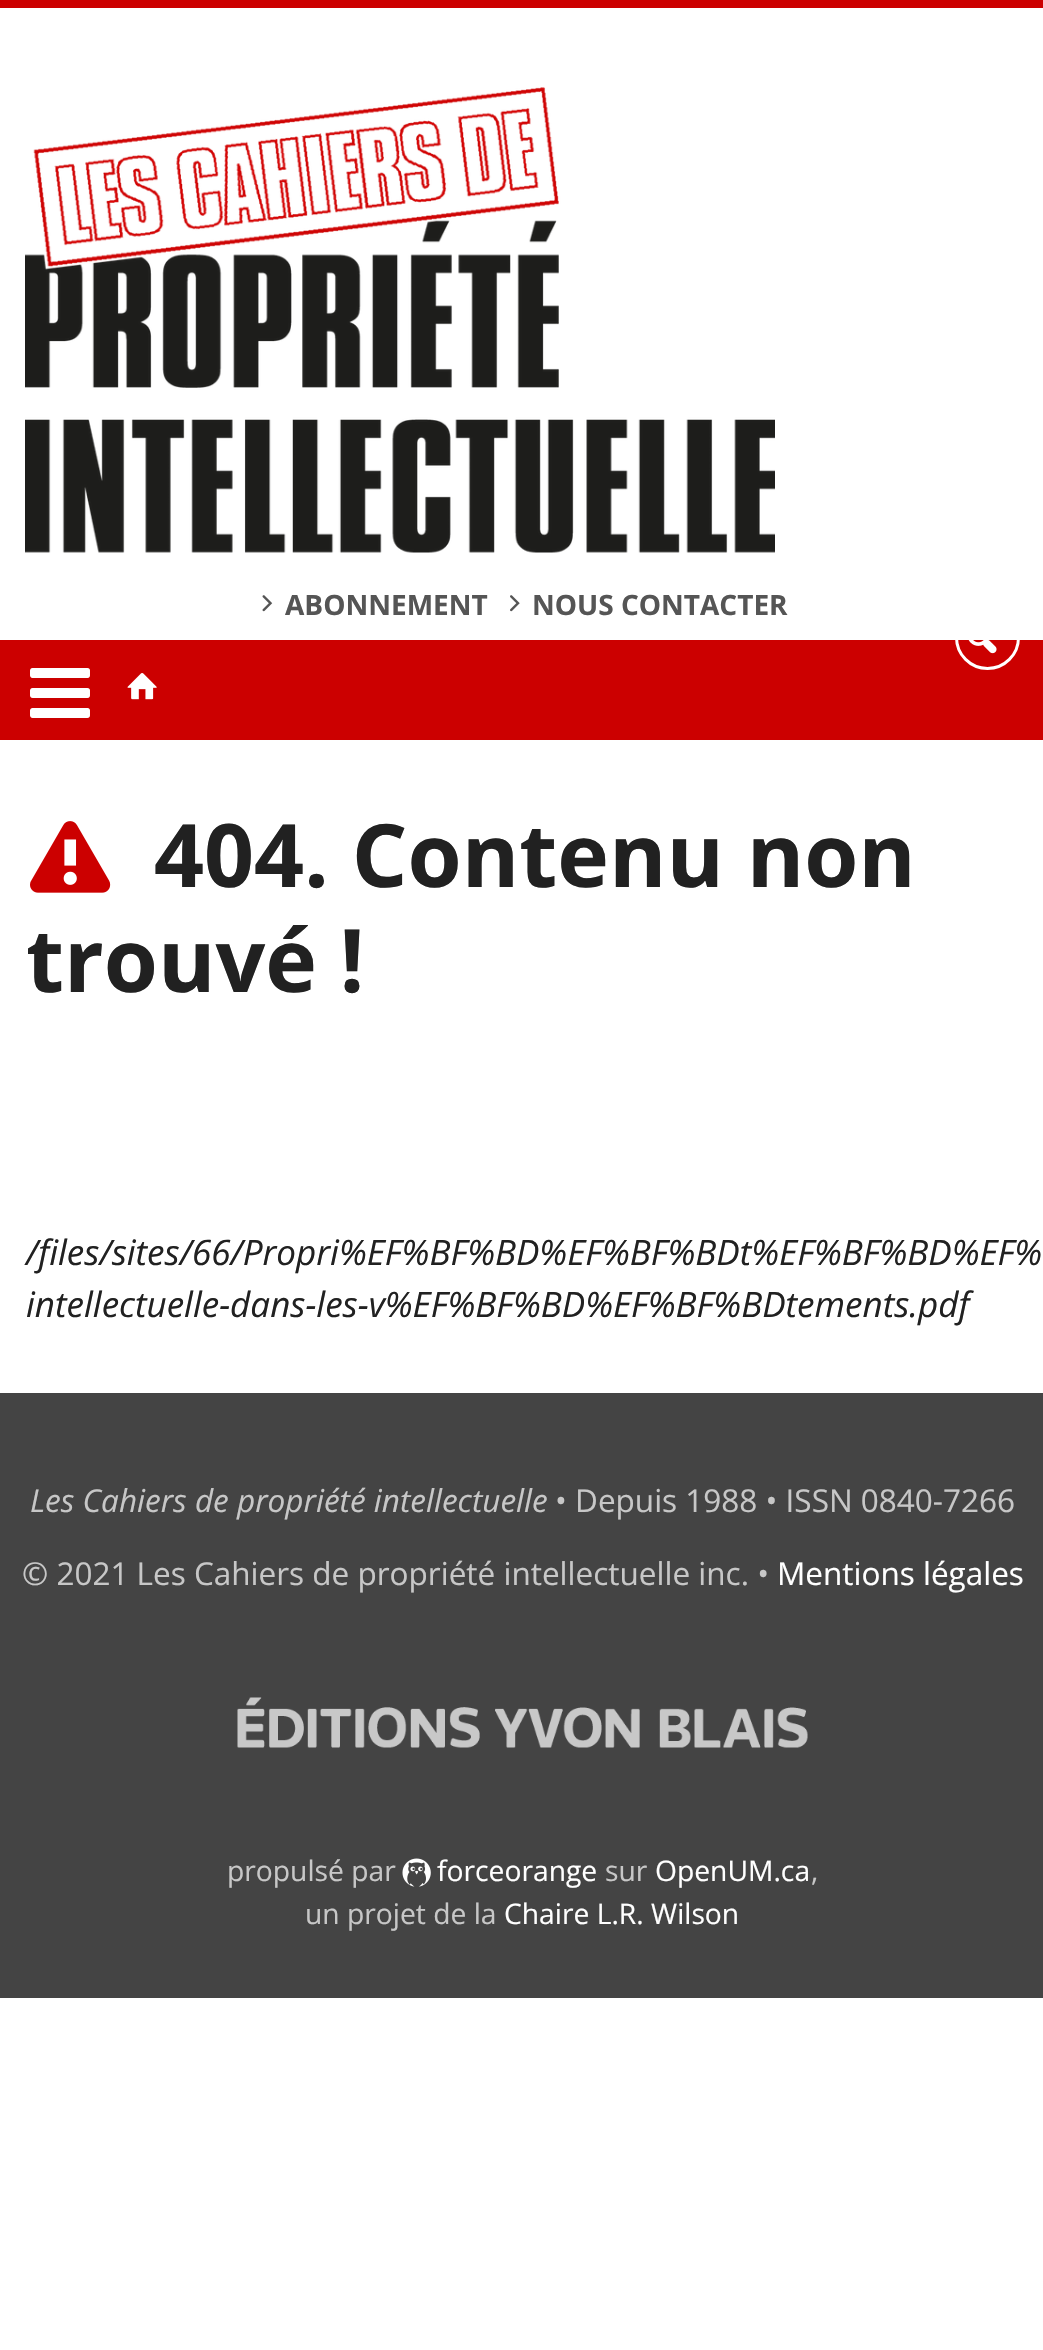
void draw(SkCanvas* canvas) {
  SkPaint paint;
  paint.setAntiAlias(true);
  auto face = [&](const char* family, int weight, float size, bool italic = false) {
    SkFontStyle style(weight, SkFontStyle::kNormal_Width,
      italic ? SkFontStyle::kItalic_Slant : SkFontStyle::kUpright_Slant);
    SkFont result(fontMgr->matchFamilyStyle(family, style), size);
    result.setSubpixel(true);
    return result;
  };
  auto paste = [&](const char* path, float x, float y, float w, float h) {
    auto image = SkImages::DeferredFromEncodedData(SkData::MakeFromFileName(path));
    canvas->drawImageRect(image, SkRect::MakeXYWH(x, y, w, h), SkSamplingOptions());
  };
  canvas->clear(0xffffffff);
  paint.setColor(0xffcc0000);
  canvas->drawRect(SkRect::MakeXYWH(0, 0, 1043, 8), paint);
  paste("img/1.png", 25, 87, 750, 466);
  paste("img/2.png", 262, 595, 11, 17);
  paste("img/3.png", 510, 595, 10, 17);
  canvas->drawRect(SkRect::MakeXYWH(0, 640, 1043, 100), paint);
  paint.setStroke(true);
  paint.setStrokeWidth(3);
  paint.setColor(0xffffffff);
  canvas->drawCircle(987.5f, 637.5f, 31, paint);
  paste("img/4.png", 968, 640, 29, 14);
  paste("img/5.png", 30, 668, 60, 50);
  paste("img/6.png", 127, 673, 30, 27);
  paste("img/7.png", 30, 821, 81, 72);
  paint.setStroke(false);
  paint.setColor(0xff444444);
  canvas->drawRect(SkRect::MakeXYWH(0, 1393, 1043, 605), paint);
  paste("img/8.png", 237, 1697, 571, 51);
  paste("img/9.png", 402, 1858, 29, 29);
  auto f0 = face("Open Sans", 700, 28);
  paint.setColor(0xff555555);
  canvas->drawString("ABONNEMENT", 285, 615, f0, paint);
  canvas->drawString("NOUS CONTACTER", 532, 615, f0, paint);
  auto f1 = face("Open Sans", 700, 87.5f);
  paint.setColor(0xff212121);
  canvas->drawString("404. Contenu non", 154, 887, f1, paint);
  canvas->drawString("trouvé !", 26, 992, f1, paint);
  auto f2 = face("Open Sans", 400, 35, true);
  canvas->drawString("/files/sites/66/Propri%EF%BF%BD%EF%BF%BDt%EF%BF%BD%EF%", 26, 1265, f2, paint);
  canvas->drawString("intellectuelle-dans-les-v%EF%BF%BD%EF%BF%BDtements.pdf", 26, 1317, f2, paint);
  auto f3 = face("Open Sans", 400, 31.5f, true);
  paint.setColor(0xffc7c7c7);
  canvas->drawString("Les Cahiers de propriété intellectuelle", 30, 1512, f3, paint);
  auto f4 = face("Open Sans", 400, 31.5f);
  canvas->drawString("• Depuis 1988 • ISSN 0840-7266", 555, 1512, f4, paint);
  canvas->drawString("© 2021 Les Cahiers de propriété intellectuelle inc. •", 22, 1585, f4, paint);
  paint.setColor(0xffffffff);
  canvas->drawString("Mentions légales", 777, 1585, f4, paint);
  auto f5 = face("Open Sans", 400, 28.25f);
  paint.setColor(0xffc7c7c7);
  canvas->drawString("propulsé par", 227, 1881, f5, paint);
  paint.setColor(0xffffffff);
  canvas->drawString("forceorange", 437, 1881, f5, paint);
  paint.setColor(0xffc7c7c7);
  canvas->drawString("sur", 605, 1881, f5, paint);
  paint.setColor(0xffffffff);
  canvas->drawString("OpenUM.ca", 655, 1881, f5, paint);
  paint.setColor(0xffc7c7c7);
  canvas->drawString(",", 811, 1881, f5, paint);
  canvas->drawString("un projet de la", 305, 1924, f5, paint);
  paint.setColor(0xffffffff);
  canvas->drawString("Chaire L.R. Wilson", 504, 1924, f5, paint);
}
